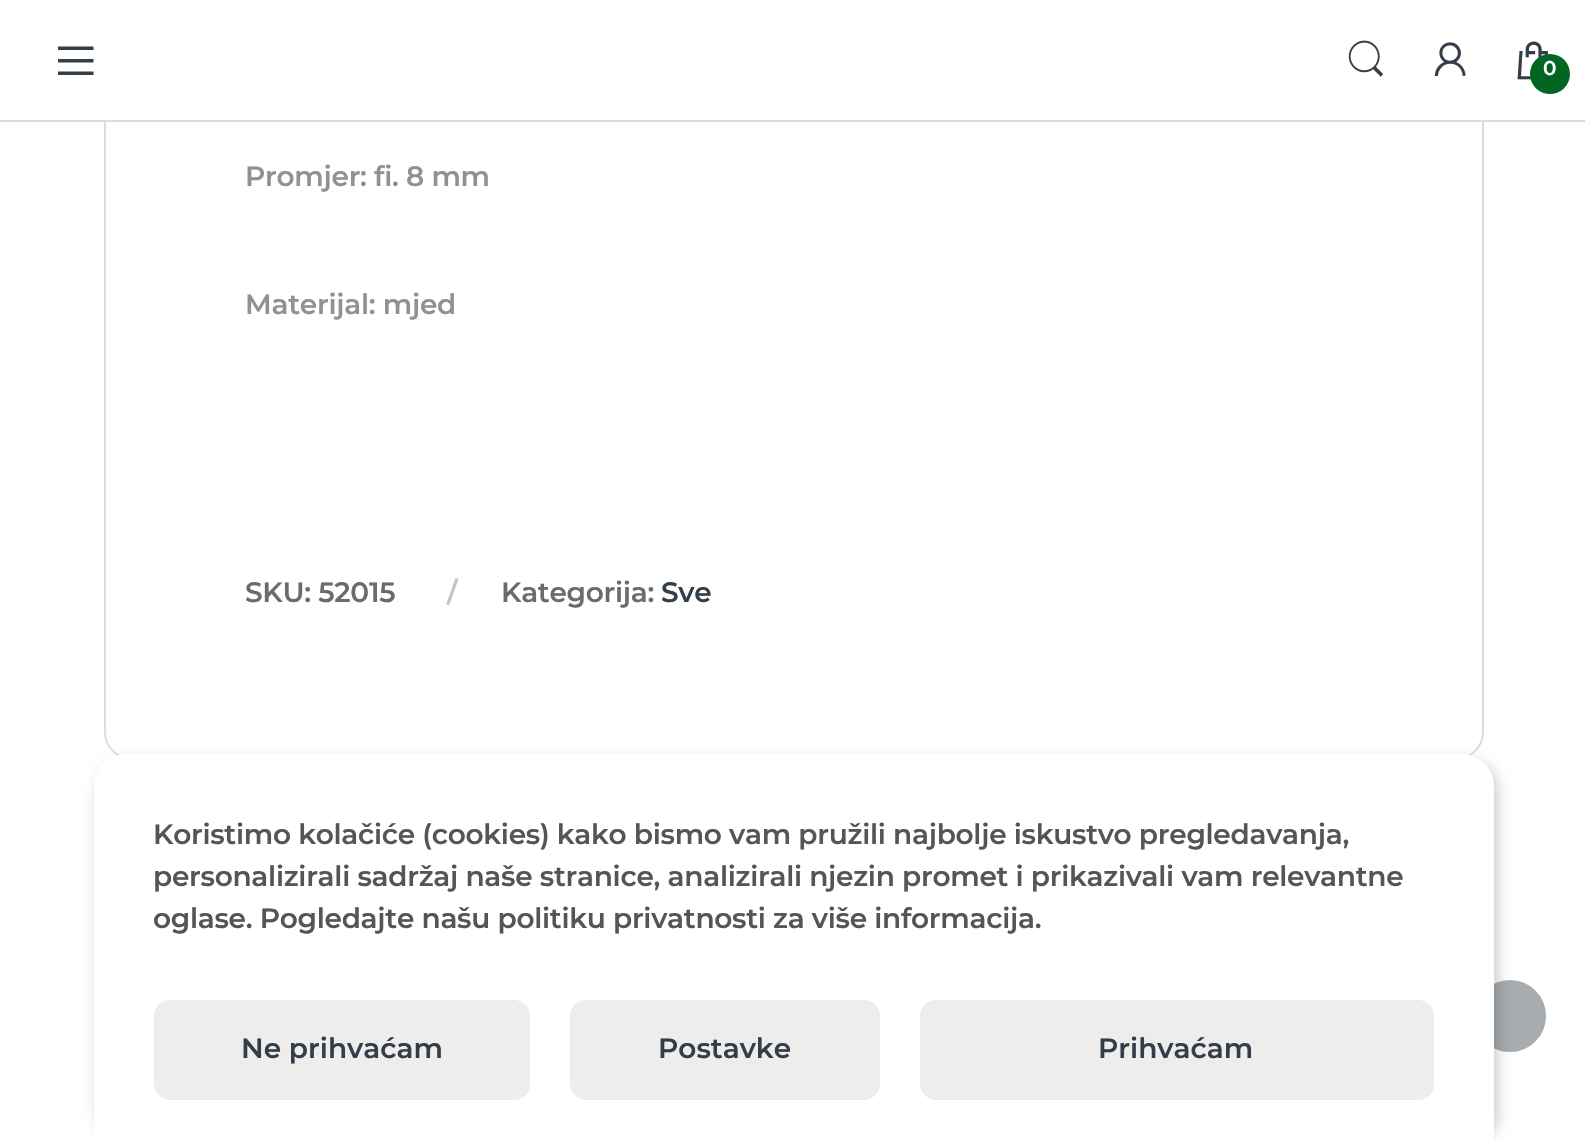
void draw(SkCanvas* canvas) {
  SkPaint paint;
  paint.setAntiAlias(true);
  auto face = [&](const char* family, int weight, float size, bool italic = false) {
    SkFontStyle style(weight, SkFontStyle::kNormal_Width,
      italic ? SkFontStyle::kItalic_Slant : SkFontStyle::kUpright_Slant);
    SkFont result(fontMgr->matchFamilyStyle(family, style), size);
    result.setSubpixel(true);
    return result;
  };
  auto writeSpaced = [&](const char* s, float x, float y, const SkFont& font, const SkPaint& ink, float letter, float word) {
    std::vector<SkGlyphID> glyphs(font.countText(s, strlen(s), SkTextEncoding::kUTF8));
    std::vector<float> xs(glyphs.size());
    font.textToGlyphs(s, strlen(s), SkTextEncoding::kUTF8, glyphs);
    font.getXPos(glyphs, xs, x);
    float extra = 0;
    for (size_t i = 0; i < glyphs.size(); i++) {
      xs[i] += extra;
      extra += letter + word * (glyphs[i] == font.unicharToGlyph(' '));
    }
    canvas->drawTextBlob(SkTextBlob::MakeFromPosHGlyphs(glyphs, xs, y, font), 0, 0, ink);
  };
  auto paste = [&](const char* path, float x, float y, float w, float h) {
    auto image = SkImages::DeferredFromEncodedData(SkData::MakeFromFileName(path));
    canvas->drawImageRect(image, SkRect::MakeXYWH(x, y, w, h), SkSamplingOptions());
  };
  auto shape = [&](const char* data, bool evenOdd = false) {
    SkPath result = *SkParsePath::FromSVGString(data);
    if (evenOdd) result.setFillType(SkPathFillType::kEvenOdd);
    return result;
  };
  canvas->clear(0xffffffff);
  paint.setStroke(true);
  paint.setStrokeWidth(2);
  paint.setColor(0xffdddddd);
  canvas->drawRoundRect(SkRect::MakeXYWH(105, -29, 1378, 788), 27, 27, paint);
  paint.setStroke(false);
  paint.setColor(0xffffffff);
  canvas->drawRect(SkRect::MakeXYWH(104, 0, 1380, 120), paint);
  paint.setColor(0xffdddddd);
  canvas->drawRect(SkRect::MakeXYWH(0, 120, 1585, 2), paint);
  paint.setColor(0xff333e48);
  canvas->drawPath(shape("M58 75V71.5H93.5V75ZM58 59H93.5V62.5H58ZM58 46.5H93.5V50H58Z"), paint);
  paste("img/1.png", 1348, 40, 36, 37);
  paste("img/2.png", 1434, 42, 32, 35);
  paste("img/3.png", 1517, 41, 32, 39);
  paint.setColor(0xff006622);
  canvas->drawCircle(1550, 74, 20, paint);
  paint.setColor(0xffa7acb1);
  canvas->drawCircle(1510, 1016, 35, paint);
  paint.setStroke(true);
  canvas->drawCircle(1510, 1016, 35, paint);
  paint.setStroke(false);
  paint.setColor(0x33000000);
  paint.setMaskFilter(SkMaskFilter::MakeBlur(kNormal_SkBlurStyle, 7));
  canvas->drawRoundRect(SkRect::MakeXYWH(98, 760, 1400, 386), 32, 32, paint);
  paint.setMaskFilter(nullptr);
  paint.setColor(0xffffffff);
  canvas->drawPath(shape("M126 754H1462C1479.5 754 1494 768.5 1494 786V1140H94V786C94 768.5 108.5 754 126 754Z"), paint);
  paint.setColor(0xffefecec);
  canvas->drawRoundRect(SkRect::MakeXYWH(155, 1001, 374, 98), 15, 15, paint);
  paint.setStroke(true);
  canvas->drawRoundRect(SkRect::MakeXYWH(155, 1001, 374, 98), 15, 15, paint);
  paint.setStroke(false);
  canvas->drawRoundRect(SkRect::MakeXYWH(571, 1001, 308, 98), 15, 15, paint);
  paint.setStroke(true);
  canvas->drawRoundRect(SkRect::MakeXYWH(571, 1001, 308, 98), 15, 15, paint);
  paint.setStroke(false);
  canvas->drawRoundRect(SkRect::MakeXYWH(921, 1001, 512, 98), 15, 15, paint);
  paint.setStroke(true);
  canvas->drawRoundRect(SkRect::MakeXYWH(921, 1001, 512, 98), 15, 15, paint);
  auto f0 = face("Montserrat", 100, 20);
  paint.setStroke(false);
  paint.setColor(0xffffffff);
  writeSpaced("0", 1543, 75, f0, paint, -0.28f, 0);
  auto f1 = face("Montserrat", 100, 28);
  paint.setColor(0xff919191);
  writeSpaced("Promjer: fi. 8 mm", 245, 186, f1, paint, -0.28f, 0);
  writeSpaced("Materijal: mjed", 245, 314, f1, paint, -0.28f, 0);
  paint.setColor(0xff686c6f);
  writeSpaced("SKU: 52015", 245, 602, f1, paint, -0.28f, 0);
  paint.setColor(0xffc5c5c5);
  writeSpaced("/", 447, 602, f1, paint, -0.28f, 0);
  paint.setColor(0xff686c6f);
  writeSpaced("Kategorija:", 501, 602, f1, paint, -0.28f, 0);
  paint.setColor(0xff333e48);
  writeSpaced("Sve", 661, 602, f1, paint, -0.28f, 0);
  paint.setColor(0xff555555);
  {
    const struct { const char* s; float x, y; } items[] = {
      {"Koristimo kolačiće (cookies) kako bismo vam pružili najbolje iskustvo pregledavanja,", 153, 844},
      {"personalizirali sadržaj naše stranice, analizirali njezin promet i prikazivali vam relevantne", 153, 886},
      {"oglase. Pogledajte našu politiku privatnosti za više informacija.", 153, 928},
    };
    for (auto [s, x, y] : items) {
      writeSpaced(s, x, y, f1, paint, -0.28f, 0);
    }
  }
  paint.setColor(0xff333e48);
  {
    const struct { const char* s; float x, y; } items[] = {
      {"Ne prihvaćam", 241, 1058},
      {"Postavke", 658, 1058},
      {"Prihvaćam", 1098, 1058},
    };
    for (auto [s, x, y] : items) {
      canvas->drawString(s, x, y, f1, paint);
    }
  }
}
